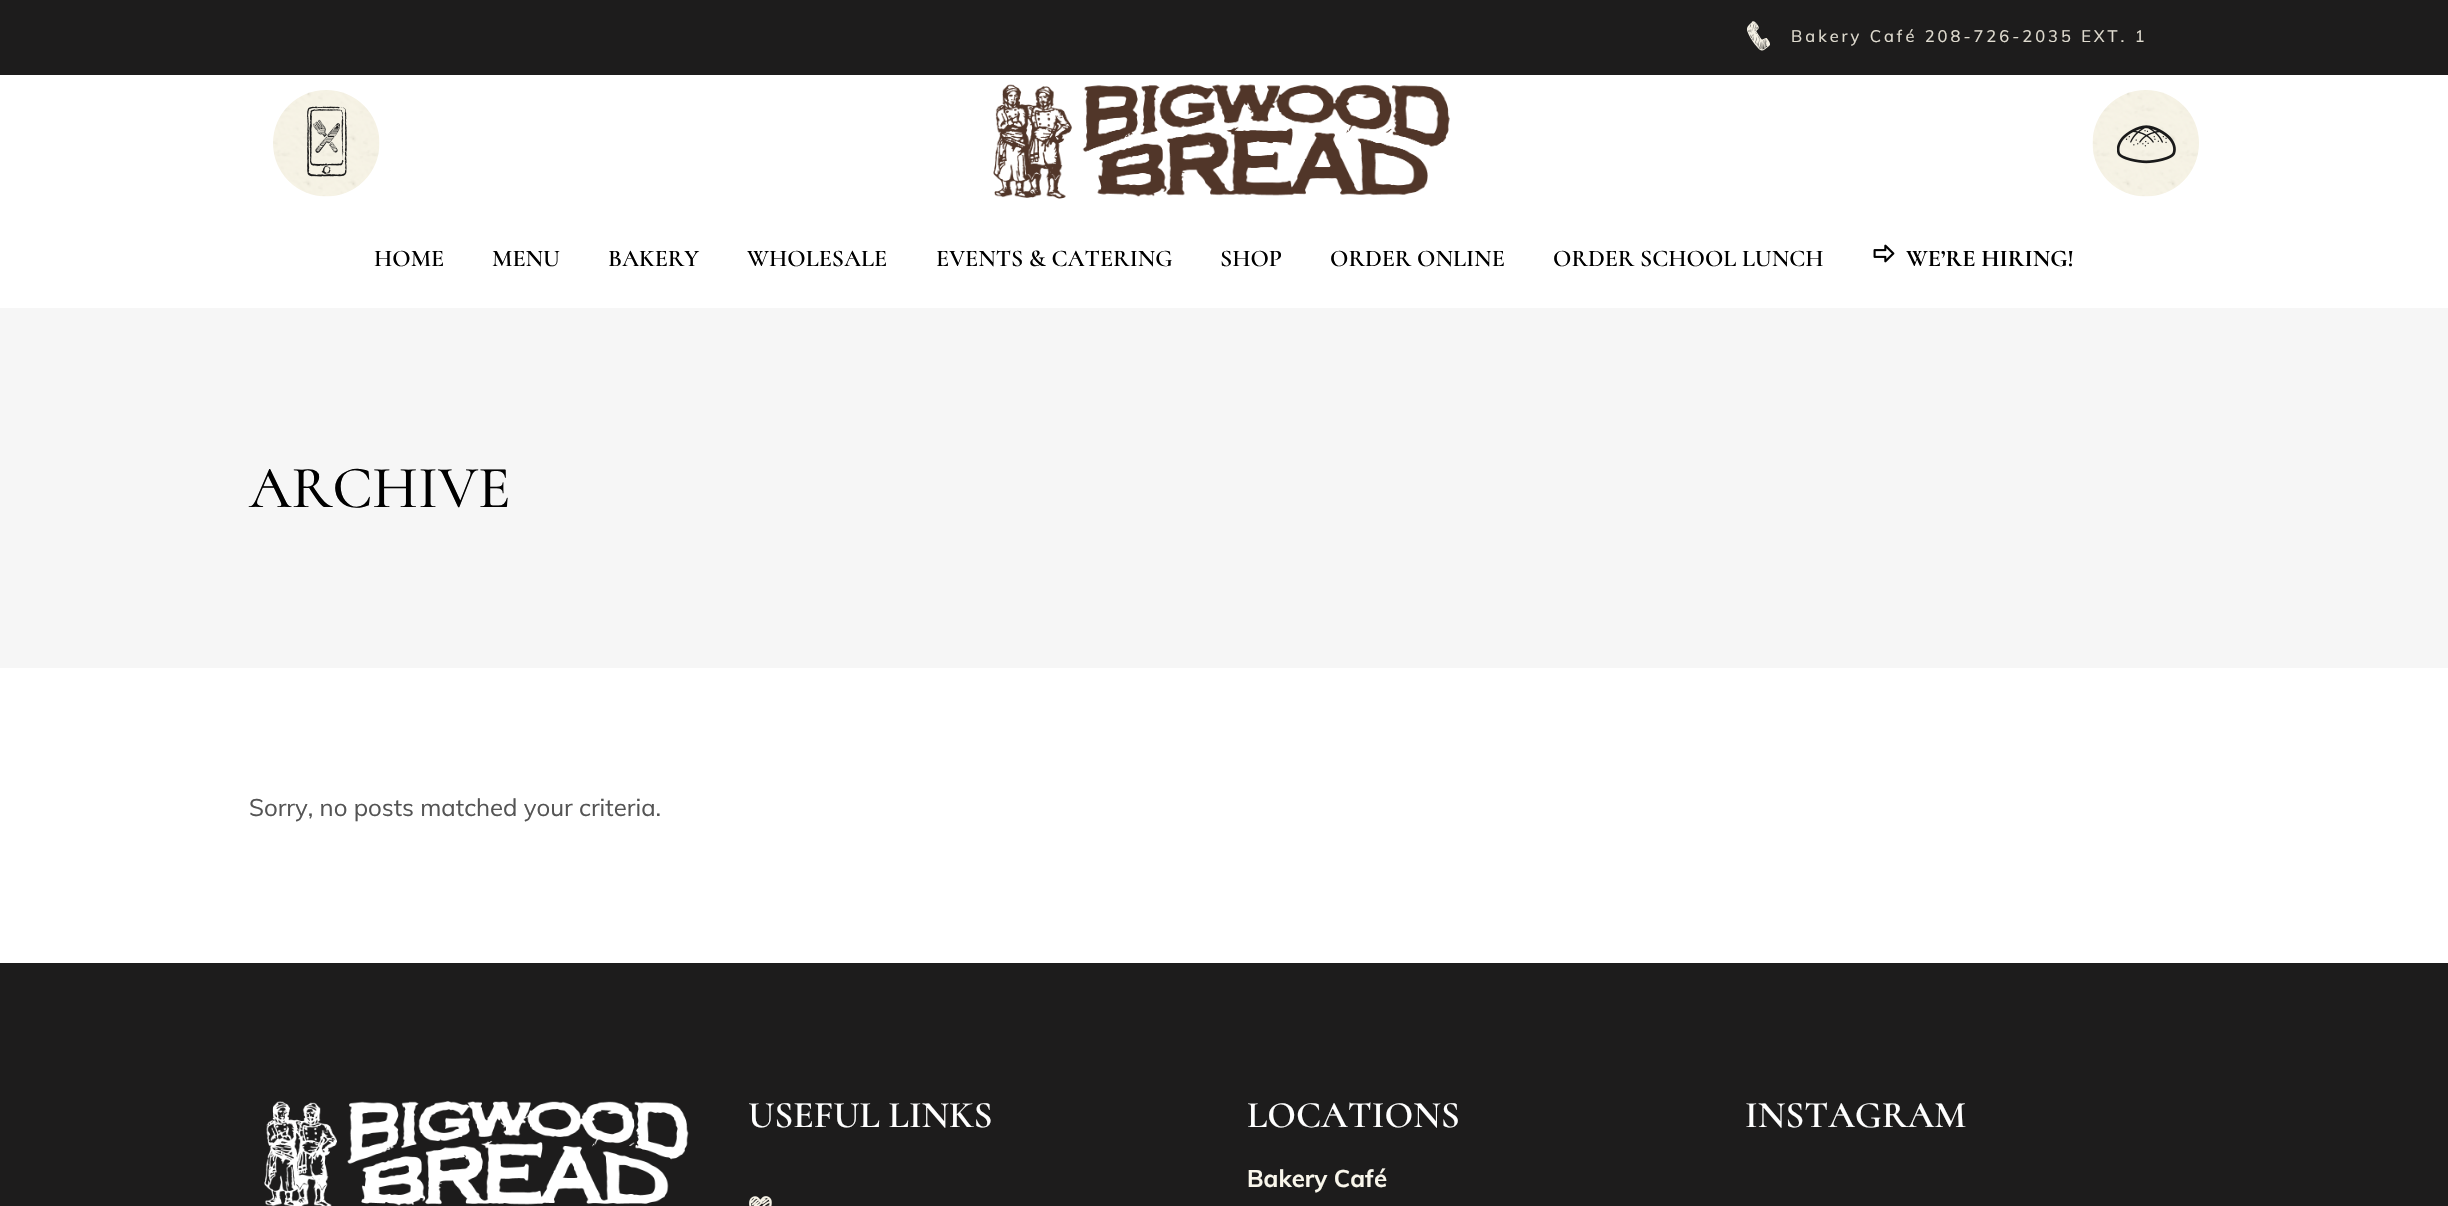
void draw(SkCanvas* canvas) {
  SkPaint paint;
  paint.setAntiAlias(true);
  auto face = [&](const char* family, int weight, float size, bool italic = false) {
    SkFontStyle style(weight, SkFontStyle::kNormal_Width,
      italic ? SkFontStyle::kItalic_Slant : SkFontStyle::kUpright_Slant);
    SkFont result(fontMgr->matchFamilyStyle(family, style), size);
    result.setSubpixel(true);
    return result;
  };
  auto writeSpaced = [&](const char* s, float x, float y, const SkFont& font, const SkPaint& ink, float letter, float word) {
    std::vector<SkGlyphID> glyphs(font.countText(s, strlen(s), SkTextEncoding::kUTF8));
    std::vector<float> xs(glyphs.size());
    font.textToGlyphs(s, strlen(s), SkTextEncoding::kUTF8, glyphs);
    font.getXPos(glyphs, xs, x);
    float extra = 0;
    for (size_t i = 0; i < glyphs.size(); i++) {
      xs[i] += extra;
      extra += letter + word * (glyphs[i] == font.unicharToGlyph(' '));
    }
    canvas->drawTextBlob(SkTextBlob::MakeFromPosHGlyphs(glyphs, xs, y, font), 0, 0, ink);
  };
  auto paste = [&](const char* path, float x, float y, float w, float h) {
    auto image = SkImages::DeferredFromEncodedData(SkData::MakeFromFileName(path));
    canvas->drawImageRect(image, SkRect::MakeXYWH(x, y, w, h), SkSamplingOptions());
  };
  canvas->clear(0xffffffff);
  paint.setColor(0xff1d1c1c);
  canvas->drawRect(SkRect::MakeXYWH(0, 0, 2448, 75), paint);
  paste("img/1.png", 1746, 21, 24, 30);
  paste("img/2.png", 273, 90, 107, 107);
  paste("img/3.png", 307, 106, 40, 71);
  paste("img/4.png", 993, 84, 457, 115);
  paste("img/5.png", 2092, 90, 107, 107);
  paste("img/6.png", 2117, 125, 59, 39);
  paste("img/7.png", 1873, 244, 22, 19);
  paint.setColor(0xfff6f6f6);
  canvas->drawRect(SkRect::MakeXYWH(0, 308, 2448, 360), paint);
  paint.setColor(0xff1d1c1c);
  canvas->drawRect(SkRect::MakeXYWH(0, 963, 2448, 243), paint);
  paste("img/8.png", 264, 1101, 425, 105);
  paste("img/9.png", 749, 1196, 23, 10);
  auto f0 = face("Muli", 400, 16.5f);
  paint.setColor(0xffe0dcd0);
  writeSpaced("Bakery Café 208-726-2035 EXT. 1", 1791, 42, f0, paint, 3, 0);
  auto f1 = face("Cormorant", 600, 24);
  paint.setColor(0xff000000);
  {
    const struct { const char* s; float x, y; } items[] = {
      {"HOME", 374, 266},
      {"MENU", 492, 266},
      {"BAKERY", 608, 266},
      {"WHOLESALE", 747, 266},
      {"EVENTS & CATERING", 936, 266},
      {"SHOP", 1220, 266},
      {"ORDER ONLINE", 1330, 266},
      {"ORDER SCHOOL LUNCH", 1553, 266},
    };
    for (auto [s, x, y] : items) {
      canvas->drawString(s, x, y, f1, paint);
    }
  }
  auto f2 = face("Cormorant", 700, 24);
  canvas->drawString("WE’RE HIRING!", 1906, 266, f2, paint);
  auto f3 = face("Cormorant", 500, 60);
  canvas->drawString("ARCHIVE", 249, 507, f3, paint);
  auto f4 = face("Muli", 400, 24);
  paint.setColor(0xff545454);
  canvas->drawString("Sorry, no posts matched your criteria.", 249, 816, f4, paint);
  auto f5 = face("Cormorant", 600, 37.5f);
  paint.setColor(0xffffffff);
  canvas->drawString("USEFUL LINKS", 748, 1127, f5, paint);
  canvas->drawString("LOCATIONS", 1247, 1127, f5, paint);
  auto f6 = face("Muli", 700, 24);
  paint.setColor(0xfffaf7ec);
  canvas->drawString("Bakery Café", 1247, 1187, f6, paint);
  paint.setColor(0xffffffff);
  canvas->drawString("INSTAGRAM", 1745, 1127, f5, paint);
}
